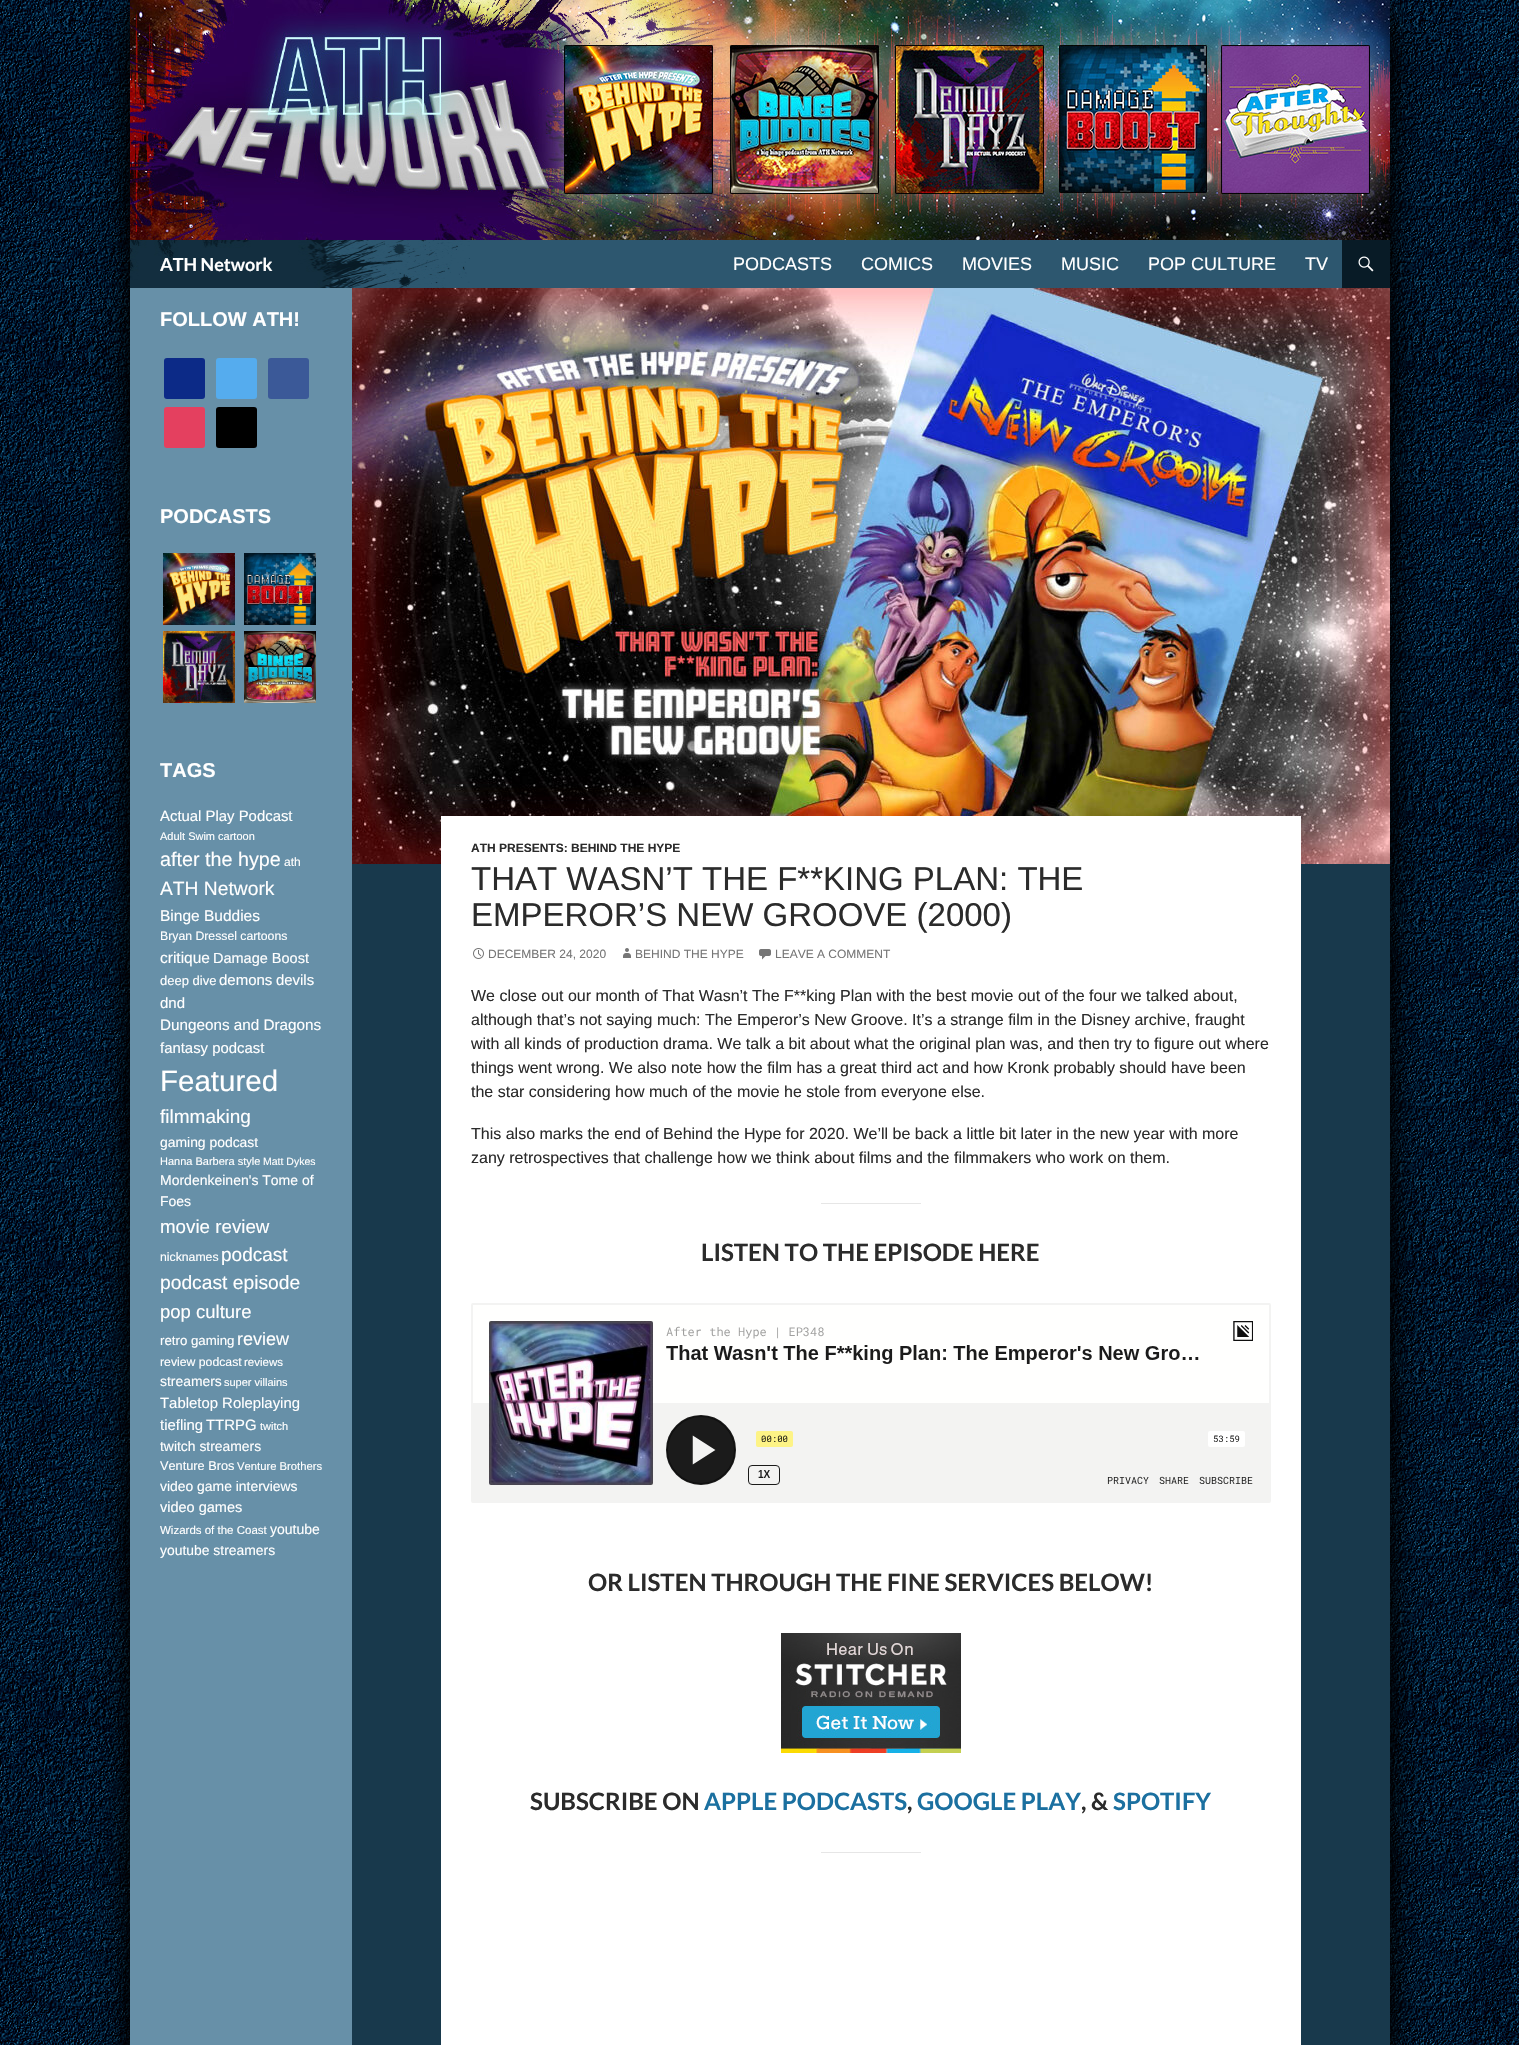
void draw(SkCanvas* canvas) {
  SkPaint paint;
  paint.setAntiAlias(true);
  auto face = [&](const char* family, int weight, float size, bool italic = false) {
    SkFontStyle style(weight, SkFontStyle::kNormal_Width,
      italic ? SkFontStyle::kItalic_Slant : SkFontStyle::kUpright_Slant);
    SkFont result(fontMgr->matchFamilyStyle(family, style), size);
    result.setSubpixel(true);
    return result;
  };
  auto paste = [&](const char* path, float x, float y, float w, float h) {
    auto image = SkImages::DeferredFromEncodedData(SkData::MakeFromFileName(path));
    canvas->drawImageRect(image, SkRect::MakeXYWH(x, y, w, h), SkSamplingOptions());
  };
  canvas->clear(0xffffffff);
  paste("img/1.png", 0, 0, 1519, 2045);
  paint.setColor(0xff000000);
  paint.setMaskFilter(SkMaskFilter::MakeBlur(kNormal_SkBlurStyle, 20));
  canvas->drawRect(SkRect::MakeXYWH(130, 16, 1260, 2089), paint);
  paint.setMaskFilter(nullptr);
  paint.setMaskFilter(SkMaskFilter::MakeBlur(kNormal_SkBlurStyle, 9));
  canvas->drawRect(SkRect::MakeXYWH(130, 4, 1260, 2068), paint);
  paint.setMaskFilter(nullptr);
  paste("img/2.png", 130, 0, 1260, 240);
  paint.setColor(0xff2d576f);
  canvas->drawRect(SkRect::MakeXYWH(470, 240, 872, 48), paint);
  paste("img/3.png", 130, 240, 340, 48);
  paint.setColor(0xff081b26);
  canvas->drawRect(SkRect::MakeXYWH(1342, 240, 48, 48), paint);
  paste("img/4.png", 1358, 256, 16, 16);
  paint.setColor(0xff6790a8);
  canvas->drawRect(SkRect::MakeXYWH(130, 288, 222, 1757), paint);
  paint.setColor(0xff18394c);
  canvas->drawRect(SkRect::MakeXYWH(352, 864, 1038, 1181), paint);
  paint.setColor(0xff0c2a87);
  canvas->drawRoundRect(SkRect::MakeXYWH(164, 358, 41, 41), 3, 3, paint);
  paint.setColor(0xff55acee);
  canvas->drawRoundRect(SkRect::MakeXYWH(216, 358, 41, 41), 3, 3, paint);
  paint.setColor(0xff3b5998);
  canvas->drawRoundRect(SkRect::MakeXYWH(268, 358, 41, 41), 3, 3, paint);
  paint.setColor(0xffe4405f);
  canvas->drawRoundRect(SkRect::MakeXYWH(164, 407, 41, 41), 3, 3, paint);
  paint.setColor(0xff000000);
  canvas->drawRoundRect(SkRect::MakeXYWH(216, 407, 41, 41), 3, 3, paint);
  paste("img/5.png", 163, 553, 72, 72);
  paste("img/6.png", 244, 553, 72, 72);
  paste("img/7.png", 163, 631, 72, 72);
  paste("img/8.png", 244, 631, 72, 72);
  paste("img/9.png", 352, 288, 1038, 576);
  paint.setColor(0xffffffff);
  canvas->drawRect(SkRect::MakeXYWH(441, 816, 860, 156), paint);
  paste("img/10.png", 473, 948, 11, 11);
  paste("img/11.png", 623, 948, 8, 10);
  paste("img/12.png", 759, 949, 12, 11);
  canvas->drawRect(SkRect::MakeXYWH(441, 972, 860, 1073), paint);
  paint.setColor(0xffe6e6e6);
  canvas->drawRect(SkRect::MakeXYWH(821, 1203, 100, 1), paint);
  paste("img/13.png", 471, 1303, 800, 200);
  paste("img/14.png", 781, 1633, 180, 120);
  canvas->drawRect(SkRect::MakeXYWH(821, 1852, 100, 1), paint);
  auto f0 = face("Lato", 700, 18);
  paint.setColor(0xffffffff);
  canvas->drawString("ATH Network", 160, 271, f0, paint);
  auto f1 = face("Liberation Sans", 400, 18);
  {
    const struct { const char* s; float x, y; } items[] = {
      {"PODCASTS", 733, 270},
      {"COMICS", 861, 270},
      {"MOVIES", 962, 270},
      {"MUSIC", 1061, 270},
      {"POP CULTURE", 1148, 270},
      {"TV", 1305, 270},
    };
    for (auto [s, x, y] : items) {
      canvas->drawString(s, x, y, f1, paint);
    }
  }
  auto f2 = face("Liberation Sans", 700, 20);
  {
    const struct { const char* s; float x, y; } items[] = {
      {"FOLLOW ATH!", 160, 326},
      {"PODCASTS", 160, 523},
      {"TAGS", 160, 777},
    };
    for (auto [s, x, y] : items) {
      canvas->drawString(s, x, y, f2, paint);
    }
  }
  auto f3 = face("Liberation Sans", 400, 14.9f);
  canvas->drawString("Actual Play Podcast", 160, 821, f3, paint);
  auto f4 = face("Liberation Sans", 400, 11);
  canvas->drawString("Adult Swim cartoon", 160, 840, f4, paint);
  auto f5 = face("Liberation Sans", 400, 19.75f);
  canvas->drawString("after the hype", 160, 866, f5, paint);
  auto f6 = face("Liberation Sans", 400, 12);
  canvas->drawString("ath", 284, 866, f6, paint);
  auto f7 = face("Liberation Sans", 400, 19.25f);
  canvas->drawString("ATH Network", 160, 895, f7, paint);
  auto f8 = face("Liberation Sans", 400, 15.5f);
  canvas->drawString("Binge Buddies", 160, 921, f8, paint);
  auto f9 = face("Liberation Sans", 400, 12.25f);
  canvas->drawString("Bryan Dressel cartoons", 160, 940, f9, paint);
  canvas->drawString("critique", 160, 963, f8, paint);
  auto f10 = face("Liberation Sans", 400, 14.5f);
  canvas->drawString("Damage Boost", 213, 963, f10, paint);
  auto f11 = face("Liberation Sans", 400, 13);
  canvas->drawString("deep dive", 160, 985, f11, paint);
  auto f12 = face("Liberation Sans", 400, 15);
  canvas->drawString("demons", 219, 985, f12, paint);
  canvas->drawString("devils", 276, 985, f3, paint);
  canvas->drawString("dnd", 160, 1008, f12, paint);
  auto f13 = face("Liberation Sans", 400, 15.25f);
  canvas->drawString("Dungeons and Dragons", 160, 1030, f13, paint);
  canvas->drawString("fantasy podcast", 160, 1053, f3, paint);
  auto f14 = face("Liberation Sans", 400, 29.5f);
  canvas->drawString("Featured", 160, 1091, f14, paint);
  auto f15 = face("Liberation Sans", 400, 19);
  canvas->drawString("filmmaking", 160, 1123, f15, paint);
  auto f16 = face("Liberation Sans", 400, 13.9f);
  canvas->drawString("gaming podcast", 160, 1147, f16, paint);
  canvas->drawString("Hanna Barbera style", 160, 1165, f4, paint);
  auto f17 = face("Liberation Sans", 400, 10.5f);
  canvas->drawString("Matt Dykes", 263, 1165, f17, paint);
  auto f18 = face("Liberation Sans", 400, 14);
  canvas->drawString("Mordenkeinen's Tome of", 160, 1185, f18, paint);
  canvas->drawString("Foes", 160, 1206, f18, paint);
  auto f19 = face("Liberation Sans", 400, 18.75f);
  canvas->drawString("movie review", 160, 1233, f19, paint);
  canvas->drawString("nicknames", 160, 1261, f9, paint);
  canvas->drawString("podcast", 221, 1261, f15, paint);
  canvas->drawString("podcast episode", 160, 1289, f7, paint);
  auto f20 = face("Liberation Sans", 400, 18.5f);
  canvas->drawString("pop culture", 160, 1318, f20, paint);
  auto f21 = face("Liberation Sans", 400, 13.25f);
  canvas->drawString("retro gaming", 160, 1345, f21, paint);
  canvas->drawString("review", 237, 1345, f1, paint);
  canvas->drawString("review podcast", 160, 1366, f9, paint);
  auto f22 = face("Liberation Sans", 400, 11.5f);
  canvas->drawString("reviews", 244, 1366, f22, paint);
  canvas->drawString("streamers", 160, 1386, f16, paint);
  canvas->drawString("super villains", 224, 1386, f4, paint);
  {
    const struct { const char* s; float x, y; } items[] = {
      {"Tabletop Roleplaying", 160, 1408},
      {"tiefling", 160, 1430},
      {"TTRPG", 206, 1430},
    };
    for (auto [s, x, y] : items) {
      canvas->drawString(s, x, y, f3, paint);
    }
  }
  canvas->drawString("twitch", 260, 1430, f4, paint);
  canvas->drawString("twitch streamers", 160, 1451, f16, paint);
  auto f23 = face("Liberation Sans", 400, 12.75f);
  canvas->drawString("Venture Bros", 160, 1470, f23, paint);
  auto f24 = face("Liberation Sans", 400, 11.25f);
  canvas->drawString("Venture Brothers", 237, 1470, f24, paint);
  canvas->drawString("video game interviews", 160, 1491, f16, paint);
  canvas->drawString("video games", 160, 1512, f10, paint);
  canvas->drawString("Wizards of the Coast", 160, 1534, f22, paint);
  canvas->drawString("youtube", 270, 1534, f18, paint);
  canvas->drawString("youtube streamers", 160, 1555, f16, paint);
  auto f25 = face("Liberation Sans", 700, 12);
  paint.setColor(0xff2b2b2b);
  canvas->drawString("ATH PRESENTS: BEHIND THE HYPE", 471, 852, f25, paint);
  auto f26 = face("Liberation Sans", 400, 33);
  canvas->drawString("THAT WASN’T THE F**KING PLAN: THE", 471, 890, f26, paint);
  canvas->drawString("EMPEROR’S NEW GROOVE (2000)", 471, 926, f26, paint);
  paint.setColor(0xff767676);
  {
    const struct { const char* s; float x, y; } items[] = {
      {"DECEMBER 24, 2020", 488, 958},
      {"BEHIND THE HYPE", 635, 958},
      {"LEAVE A COMMENT", 775, 958},
    };
    for (auto [s, x, y] : items) {
      canvas->drawString(s, x, y, f6, paint);
    }
  }
  auto f27 = face("Liberation Sans", 400, 16);
  paint.setColor(0xff2b2b2b);
  {
    const struct { const char* s; float x, y; } items[] = {
      {"We close out our month of That Wasn’t The F**king Plan with the best movie out of the four we talked about,", 471, 1001},
      {"although that’s not saying much: The Emperor’s New Groove. It’s a strange film in the Disney archive, fraught", 471, 1025},
      {"with all kinds of production drama. We talk a bit about what the original plan was, and then try to figure out where", 471, 1049},
      {"things went wrong. We also note how the film has a great third act and how Kronk probably should have been", 471, 1073},
      {"the star considering how much of the movie he stole from everyone else.", 471, 1097},
      {"This also marks the end of Behind the Hype for 2020. We’ll be back a little bit later in the new year with more", 471, 1139},
      {"zany retrospectives that challenge how we think about films and the filmmakers who work on them.", 471, 1163},
    };
    for (auto [s, x, y] : items) {
      canvas->drawString(s, x, y, f27, paint);
    }
  }
  auto f28 = face("Lato", 700, 24);
  {
    const struct { const char* s; float x, y; } items[] = {
      {"LISTEN TO THE EPISODE HERE", 701, 1261},
      {"OR LISTEN THROUGH THE FINE SERVICES BELOW!", 588, 1591},
      {"SUBSCRIBE ON", 530, 1810},
    };
    for (auto [s, x, y] : items) {
      canvas->drawString(s, x, y, f28, paint);
    }
  }
  paint.setColor(0xff1b70a0);
  canvas->drawString("APPLE PODCASTS", 704, 1810, f28, paint);
  paint.setColor(0xff2b2b2b);
  canvas->drawString(",", 907, 1810, f28, paint);
  paint.setColor(0xff1b70a0);
  canvas->drawString("GOOGLE PLAY", 917, 1810, f28, paint);
  paint.setColor(0xff2b2b2b);
  canvas->drawString(", &", 1081, 1810, f28, paint);
  paint.setColor(0xff1b70a0);
  canvas->drawString("SPOTIFY", 1113, 1810, f28, paint);
}
